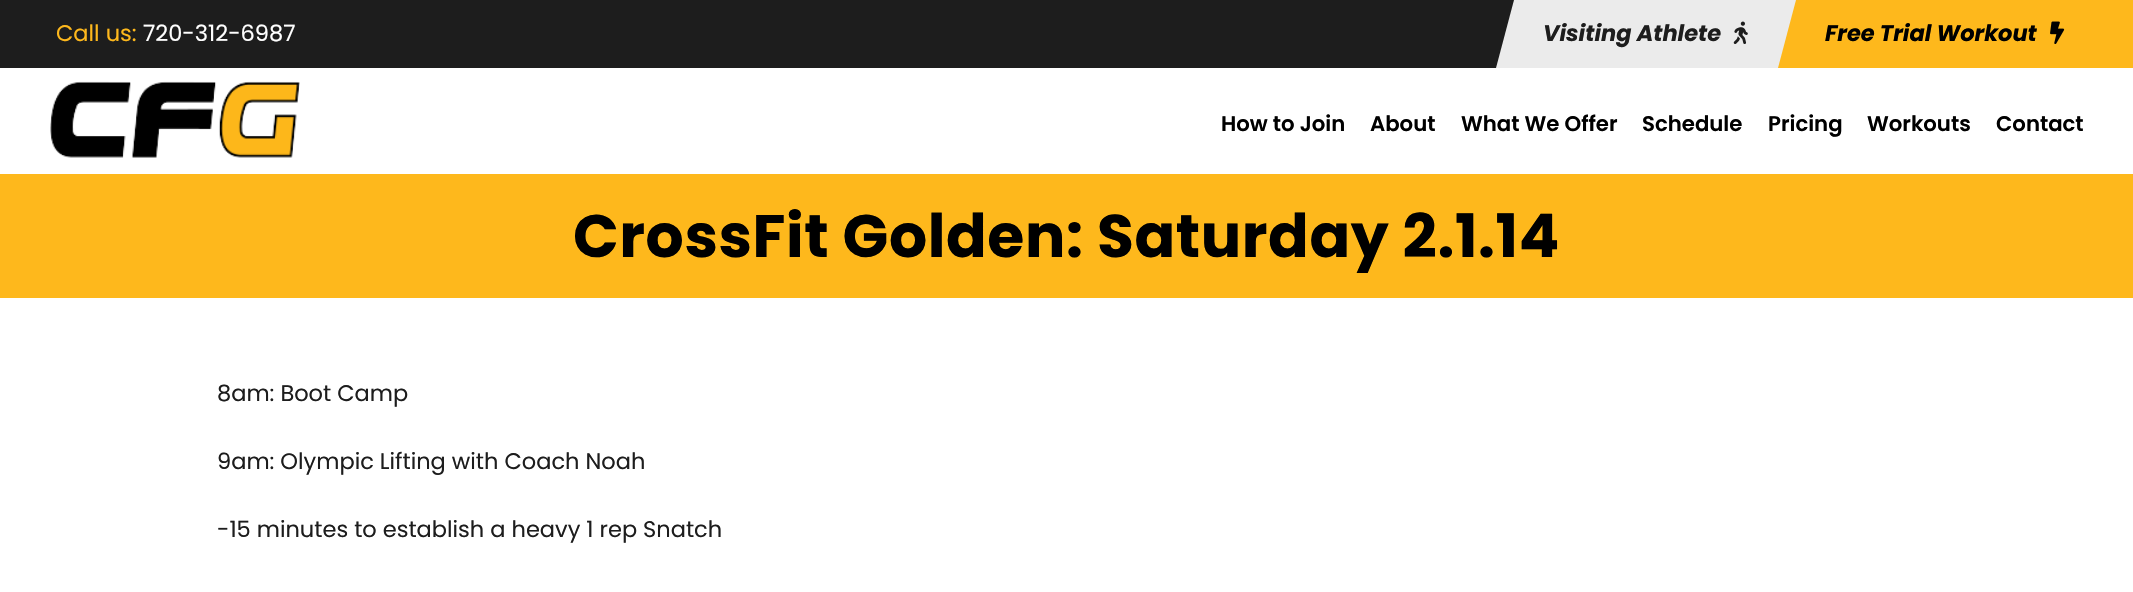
void draw(SkCanvas* canvas) {
  SkPaint paint;
  paint.setAntiAlias(true);
  auto face = [&](const char* family, int weight, float size, bool italic = false) {
    SkFontStyle style(weight, SkFontStyle::kNormal_Width,
      italic ? SkFontStyle::kItalic_Slant : SkFontStyle::kUpright_Slant);
    SkFont result(fontMgr->matchFamilyStyle(family, style), size);
    result.setSubpixel(true);
    return result;
  };
  auto writeSpaced = [&](const char* s, float x, float y, const SkFont& font, const SkPaint& ink, float letter, float word) {
    std::vector<SkGlyphID> glyphs(font.countText(s, strlen(s), SkTextEncoding::kUTF8));
    std::vector<float> xs(glyphs.size());
    font.textToGlyphs(s, strlen(s), SkTextEncoding::kUTF8, glyphs);
    font.getXPos(glyphs, xs, x);
    float extra = 0;
    for (size_t i = 0; i < glyphs.size(); i++) {
      xs[i] += extra;
      extra += letter + word * (glyphs[i] == font.unicharToGlyph(' '));
    }
    canvas->drawTextBlob(SkTextBlob::MakeFromPosHGlyphs(glyphs, xs, y, font), 0, 0, ink);
  };
  auto paste = [&](const char* path, float x, float y, float w, float h) {
    auto image = SkImages::DeferredFromEncodedData(SkData::MakeFromFileName(path));
    canvas->drawImageRect(image, SkRect::MakeXYWH(x, y, w, h), SkSamplingOptions());
  };
  auto shape = [&](const char* data, bool evenOdd = false) {
    SkPath result = *SkParsePath::FromSVGString(data);
    if (evenOdd) result.setFillType(SkPathFillType::kEvenOdd);
    return result;
  };
  canvas->clear(0xffffffff);
  paint.setColor(0xff1d1d1d);
  canvas->drawRect(SkRect::MakeXYWH(0, 0, 1514, 68), paint);
  paint.setColor(0xffebebeb);
  canvas->drawPath(shape("M1514 0H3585L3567 68H1496Z"), paint);
  paste("img/1.png", 1733, 21, 15, 23);
  {
    const SkColor colors[] = {0xffffffff, 0xffcccccc, 0xfffeb81c, 0xfffeb81c};
    const float stops[] = {0, 0.5f, 0.5f, 1};
    const SkPoint ends[] = {{-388, 34}, {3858, 34}};
    paint.setShader(SkGradientShader::MakeLinear(ends, colors, stops, 4, SkTileMode::kClamp));
    paint.setAlpha(255);
  }
  canvas->drawPath(shape("M1796 0H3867L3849 68H1778Z"), paint);
  paste("img/2.png", 2050, 21, 15, 23);
  paste("img/3.png", 50, 81, 250, 77);
  paint.setShader(nullptr);
  paint.setColor(0xfffeb81c);
  canvas->drawRect(SkRect::MakeXYWH(0, 174, 2133, 124), paint);
  auto f0 = face("Poppins", 400, 22.5f);
  canvas->drawString("Call us:", 56, 41, f0, paint);
  paint.setColor(0xffffffff);
  canvas->drawString("720-312-6987", 143, 41, f0, paint);
  auto f1 = face("Poppins", 700, 22.5f, true);
  paint.setColor(0xff1d1d1d);
  canvas->drawString("Visiting Athlete", 1543, 41, f1, paint);
  paint.setColor(0xff000000);
  canvas->drawString("Free Trial Workout", 1825, 41, f1, paint);
  auto f2 = face("Poppins", 600, 21.25f);
  {
    const struct { const char* s; float x, y; } items[] = {
      {"How to Join", 1221, 131},
      {"About", 1370, 131},
      {"What We Offer", 1461, 131},
      {"Schedule", 1642, 131},
      {"Pricing", 1768, 131},
      {"Workouts", 1867, 131},
      {"Contact", 1996, 131},
    };
    for (auto [s, x, y] : items) {
      canvas->drawString(s, x, y, f2, paint);
    }
  }
  auto f3 = face("Poppins", 700, 60);
  writeSpaced("CrossFit Golden: Saturday 2.1.14", 573, 257, f3, paint, 0.6f, 0);
  paint.setColor(0xff1d1d1d);
  {
    const struct { const char* s; float x, y; } items[] = {
      {"8am: Boot Camp", 217, 401},
      {"9am: Olympic Lifting with Coach Noah", 217, 469},
      {"-15 minutes to establish a heavy 1 rep Snatch", 217, 537},
    };
    for (auto [s, x, y] : items) {
      canvas->drawString(s, x, y, f0, paint);
    }
  }
}
